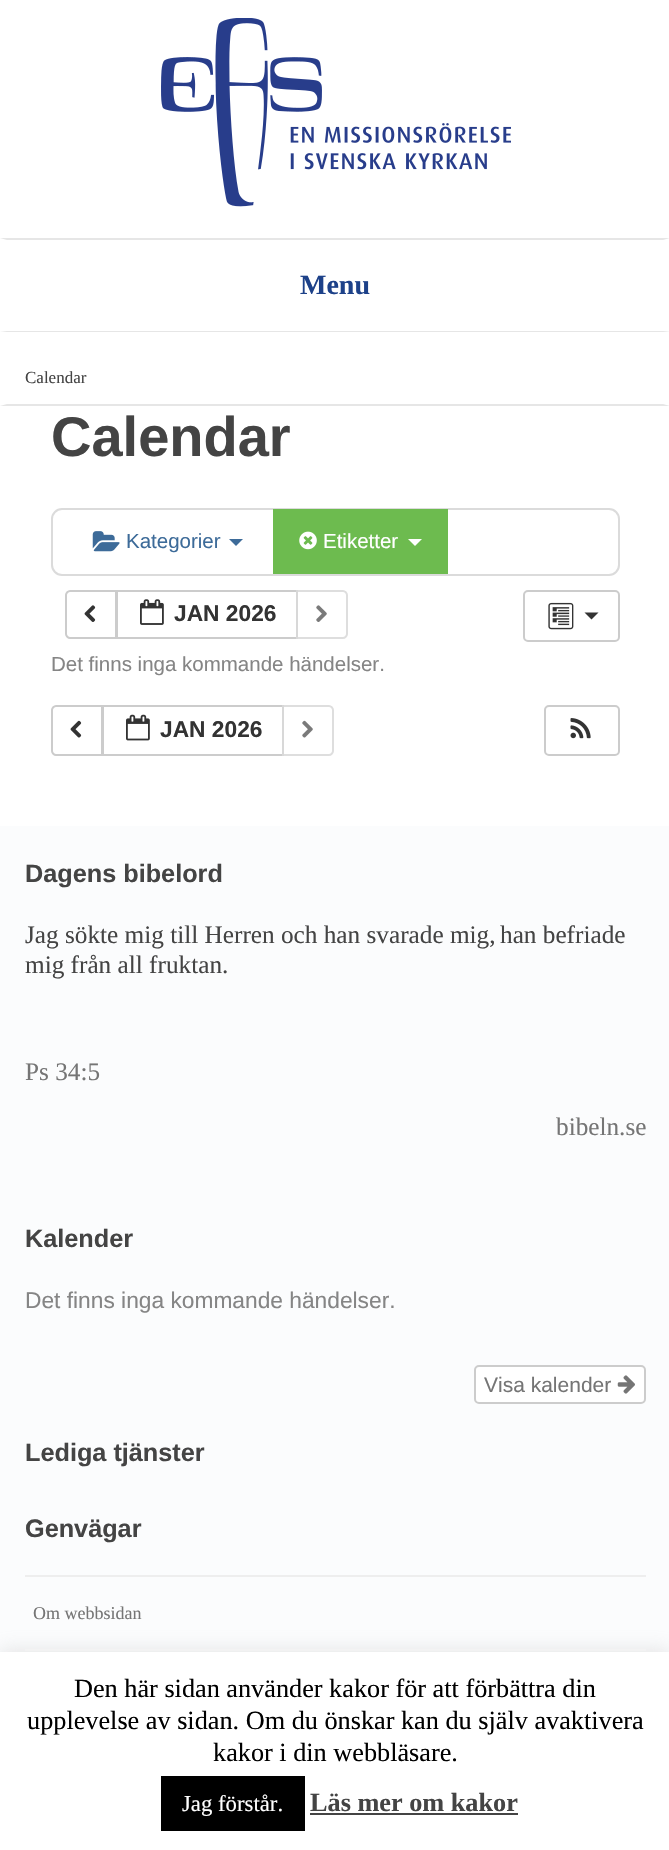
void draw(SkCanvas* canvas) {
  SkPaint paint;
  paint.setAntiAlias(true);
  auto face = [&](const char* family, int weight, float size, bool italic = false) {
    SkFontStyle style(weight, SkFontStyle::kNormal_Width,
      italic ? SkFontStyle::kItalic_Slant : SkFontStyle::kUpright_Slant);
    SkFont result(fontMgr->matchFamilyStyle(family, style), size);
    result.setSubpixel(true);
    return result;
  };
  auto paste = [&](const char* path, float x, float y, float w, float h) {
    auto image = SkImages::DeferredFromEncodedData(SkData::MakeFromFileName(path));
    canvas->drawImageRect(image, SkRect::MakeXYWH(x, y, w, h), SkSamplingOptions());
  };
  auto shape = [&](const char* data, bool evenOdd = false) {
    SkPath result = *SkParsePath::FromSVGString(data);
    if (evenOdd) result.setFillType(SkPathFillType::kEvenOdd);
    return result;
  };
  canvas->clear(0xffffffff);
  paste("img/1.png", 161, 18, 350, 189);
  paint.setColor(0xffe6e6e6);
  canvas->drawPath(shape("M0 238H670L663 240H7Z"), paint);
  canvas->drawPath(shape("M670 332H0L7 331H663Z"), paint);
  canvas->drawPath(shape("M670 406H0L7 404H663Z"), paint);
  paint.setStroke(true);
  paint.setStrokeWidth(2);
  paint.setColor(0xffdbdbdb);
  canvas->drawRoundRect(SkRect::MakeXYWH(52, 509, 567, 66), 10, 10, paint);
  paste("img/2.png", 92, 531, 28, 21);
  paint.setStroke(false);
  paint.setColor(0xff3d6b99);
  canvas->drawPath(shape("M229 539H243L236 546Z"), paint);
  paint.setColor(0xff6dbb4f);
  canvas->drawRect(SkRect::MakeXYWH(273, 509, 175, 65), paint);
  paste("img/3.png", 299, 531, 18, 19);
  paint.setColor(0xffffffff);
  canvas->drawPath(shape("M408 539H422L415 546Z"), paint);
  paint.setStroke(true);
  paint.setColor(0xffcccccc);
  canvas->drawPath(shape("M70 591H116V638H70C68 638 66 636 66 634V595C66 593 68 591 70 591Z"), paint);
  paste("img/4.png", 84, 605, 12, 17);
  canvas->drawRect(SkRect::MakeXYWH(117, 591, 180, 47), paint);
  paste("img/5.png", 140, 599, 24, 26);
  paint.setStroke(false);
  paint.setColor(0xa6ffffff);
  canvas->drawPath(shape("M296 590H343C346 590 348 592 348 595V634C348 637 346 639 343 639H296Z"), paint);
  paint.setStroke(true);
  paint.setColor(0xa6cccccc);
  canvas->drawPath(shape("M297 591H343C345 591 347 593 347 595V634C347 636 345 638 343 638H297Z"), paint);
  paste("img/6.png", 316, 605, 11, 17);
  paint.setColor(0xffcccccc);
  canvas->drawRoundRect(SkRect::MakeXYWH(524, 591, 95, 50), 4, 4, paint);
  paste("img/7.png", 548, 602, 26, 28);
  paint.setStroke(false);
  paint.setColor(0xff333333);
  canvas->drawPath(shape("M584.5 612.5H598.5L591.5 619.5Z"), paint);
  paint.setStroke(true);
  paint.setColor(0xffcccccc);
  canvas->drawPath(shape("M56 706H102V755H56C54 755 52 753 52 751V710C52 708 54 706 56 706Z"), paint);
  paste("img/8.png", 70, 720, 12, 18);
  canvas->drawRect(SkRect::MakeXYWH(103, 706, 180, 49), paint);
  paste("img/9.png", 126, 714, 24, 27);
  paint.setStroke(false);
  paint.setColor(0xa6ffffff);
  canvas->drawPath(shape("M282 705H329C332 705 334 707 334 710V751C334 754 332 756 329 756H282Z"), paint);
  paint.setStroke(true);
  paint.setColor(0xa6cccccc);
  canvas->drawPath(shape("M283 706H329C331 706 333 708 333 710V751C333 753 331 755 329 755H283Z"), paint);
  paste("img/10.png", 302, 720, 11, 18);
  paint.setColor(0xffcccccc);
  canvas->drawRoundRect(SkRect::MakeXYWH(545, 706, 74, 49), 4, 4, paint);
  paste("img/11.png", 570, 718, 21, 21);
  paint.setStroke(false);
  paint.setColor(0xfffbfcfd);
  canvas->drawRect(SkRect::MakeXYWH(0, 826, 669, 826), paint);
  paint.setColor(0xffffffff);
  canvas->drawRoundRect(SkRect::MakeXYWH(475, 1366, 170, 37), 4, 4, paint);
  paint.setStroke(true);
  paint.setColor(0xffcccccc);
  canvas->drawRoundRect(SkRect::MakeXYWH(475, 1366, 170, 37), 4, 4, paint);
  paste("img/12.png", 617, 1375, 18, 19);
  paint.setStroke(false);
  paint.setColor(0xffeeeeee);
  canvas->drawRect(SkRect::MakeXYWH(25, 1575, 621, 2), paint);
  paint.setColor(0xffffffff);
  canvas->drawRect(SkRect::MakeXYWH(25, 1649, 621, 2), paint);
  paint.setColor(0x4dacabab);
  paint.setMaskFilter(SkMaskFilter::MakeBlur(kNormal_SkBlurStyle, 9));
  canvas->drawRect(SkRect::MakeXYWH(0, 1650, 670, 200), paint);
  paint.setMaskFilter(nullptr);
  {
    const struct { float x, y, w, h; SkColor color; } items[] = {
      {0, 1652, 669, 198, 0xffffffff},
      {161, 1776, 144, 55, 0xff000000},
      {310, 1813, 208, 2, 0xff444444},
    };
    for (auto [x, y, w, h, color] : items) {
      paint.setColor(color);
      canvas->drawRect(SkRect::MakeXYWH(x, y, w, h), paint);
    }
  }
  auto f0 = face("Liberation Serif", 700, 28);
  paint.setColor(0xff1d4189);
  canvas->drawString("Menu", 300, 294, f0, paint);
  auto f1 = face("Liberation Serif", 400, 17);
  paint.setColor(0xff444444);
  canvas->drawString("Calendar", 25, 383, f1, paint);
  auto f2 = face("Liberation Sans", 700, 56);
  canvas->drawString("Calendar", 51, 456, f2, paint);
  auto f3 = face("Liberation Sans", 400, 20.5f);
  paint.setColor(0xff3d6b99);
  canvas->drawString("Kategorier", 126, 548, f3, paint);
  paint.setColor(0xffffffff);
  canvas->drawString("Etiketter", 323, 548, f3, paint);
  auto f4 = face("Liberation Sans", 700, 22.75f);
  paint.setColor(0xff333333);
  canvas->drawString("JAN 2026", 174, 621, f4, paint);
  paint.setColor(0xff858585);
  canvas->drawString("Det finns inga kommande händelser.", 51, 671, f3, paint);
  paint.setColor(0xff333333);
  canvas->drawString("JAN 2026", 160, 737, f4, paint);
  auto f5 = face("Liberation Sans", 700, 25.25f);
  paint.setColor(0xff444444);
  canvas->drawString("Dagens bibelord", 25, 882, f5, paint);
  auto f6 = face("Liberation Serif", 400, 25.25f);
  {
    const struct { const char* s; float x, y; } items[] = {
      {"Jag sökte mig till Herren och han svarade mig,", 25, 943},
      {"han befriade", 500, 943},
      {"mig från all fruktan.", 25, 973},
    };
    for (auto [s, x, y] : items) {
      canvas->drawString(s, x, y, f6, paint);
    }
  }
  paint.setColor(0xff757575);
  canvas->drawString("Ps 34:5", 25, 1080, f6, paint);
  canvas->drawString("bibeln.se", 556, 1135, f6, paint);
  paint.setColor(0xff444444);
  canvas->drawString("Kalender", 25, 1247, f5, paint);
  auto f7 = face("Liberation Sans", 400, 22.75f);
  paint.setColor(0xff858585);
  canvas->drawString("Det finns inga kommande händelser.", 25, 1308, f7, paint);
  auto f8 = face("Liberation Sans", 400, 21);
  paint.setColor(0xff757575);
  canvas->drawString("Visa kalender", 484, 1392, f8, paint);
  paint.setColor(0xff444444);
  canvas->drawString("Lediga tjänster", 25, 1461, f5, paint);
  canvas->drawString("Genvägar", 25, 1537, f5, paint);
  auto f9 = face("Liberation Serif", 400, 18);
  paint.setColor(0xff757575);
  canvas->drawString("Om webbsidan", 33, 1619, f9, paint);
  auto f10 = face("Liberation Serif", 400, 26.25f);
  paint.setColor(0xff000000);
  {
    const struct { const char* s; float x, y; } items[] = {
      {"Den här sidan använder kakor för att förbättra din", 74, 1697},
      {"upplevelse av sidan. Om du önskar kan du själv avaktivera", 27, 1729},
      {"kakor i din webbläsare.", 213, 1761},
    };
    for (auto [s, x, y] : items) {
      canvas->drawString(s, x, y, f10, paint);
    }
  }
  auto f11 = face("Liberation Serif", 400, 22.75f);
  paint.setColor(0xffffffff);
  canvas->drawString("Jag förstår.", 182, 1811, f11, paint);
  auto f12 = face("Liberation Serif", 700, 26.25f);
  paint.setColor(0xff444444);
  canvas->drawString("Läs mer om kakor", 310, 1811, f12, paint);
}
